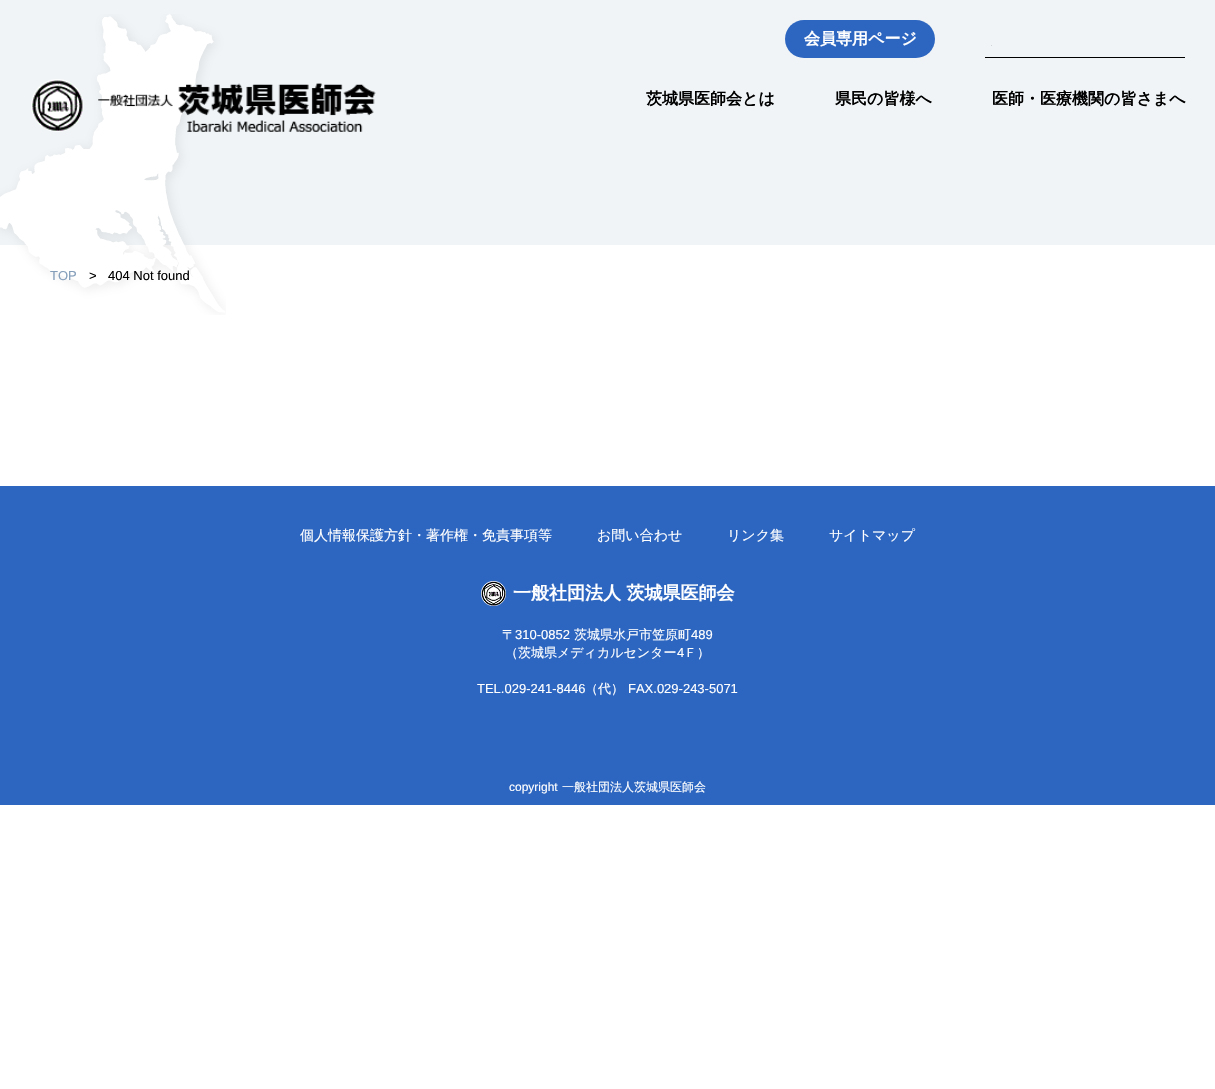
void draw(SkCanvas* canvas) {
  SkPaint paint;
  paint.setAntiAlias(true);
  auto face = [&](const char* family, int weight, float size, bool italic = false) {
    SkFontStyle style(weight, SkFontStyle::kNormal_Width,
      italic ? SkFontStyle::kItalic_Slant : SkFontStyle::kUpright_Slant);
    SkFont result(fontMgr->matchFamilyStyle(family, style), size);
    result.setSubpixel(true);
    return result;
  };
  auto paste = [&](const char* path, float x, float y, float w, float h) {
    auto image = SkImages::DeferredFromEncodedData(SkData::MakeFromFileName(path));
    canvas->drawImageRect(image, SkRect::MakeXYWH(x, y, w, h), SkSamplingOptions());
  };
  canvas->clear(0xffffffff);
  paint.setColor(0xfff0f4f6);
  canvas->drawRect(SkRect::MakeXYWH(0, 0, 1215, 245), paint);
  paint.setColor(0xff2d66c1);
  canvas->drawRoundRect(SkRect::MakeXYWH(785, 20, 150, 38), 19, 19, paint);
  paint.setColor(0xff000000);
  canvas->drawRect(SkRect::MakeXYWH(985, 57, 200, 1), paint);
  paint.setColor(0xffd1d4d6);
  canvas->drawRect(SkRect::MakeXYWH(991, 45, 1, 1), paint);
  paste("img/2.png", 0, 14, 226, 301);
  paste("img/1.png", 31, 79, 345, 53);
  paint.setColor(0xff2d66c1);
  canvas->drawRect(SkRect::MakeXYWH(0, 486, 1215, 319), paint);
  paste("img/3.png", 481, 581, 25, 25);
  auto f0 = face("WenQuanYi Zen Hei", 700, 16);
  paint.setColor(0xffffffff);
  canvas->drawString("会員専用ページ", 804, 44, f0, paint);
  paint.setColor(0xff000000);
  {
    const struct { const char* s; float x, y; } items[] = {
      {"茨城県医師会とは", 646, 104},
      {"県民の皆様へ", 835, 104},
      {"医師・医療機関の皆さまへ", 992, 104},
    };
    for (auto [s, x, y] : items) {
      canvas->drawString(s, x, y, f0, paint);
    }
  }
  auto f1 = face("Liberation Sans", 400, 13);
  paint.setColor(0xff849eba);
  canvas->drawString("TOP", 50, 280, f1, paint);
  paint.setColor(0xff000000);
  canvas->drawString(">", 89, 280, f1, paint);
  canvas->drawString("404 Not found", 108, 280, f1, paint);
  auto f2 = face("WenQuanYi Zen Hei", 500, 14);
  paint.setColor(0xffffffff);
  {
    const struct { const char* s; float x, y; } items[] = {
      {"個人情報保護方針・著作権・免責事項等", 300, 540},
      {"お問い合わせ", 597, 540},
      {"リンク集", 727, 540},
      {"サイトマップ", 829, 540},
    };
    for (auto [s, x, y] : items) {
      canvas->drawString(s, x, y, f2, paint);
    }
  }
  auto f3 = face("WenQuanYi Zen Hei", 700, 18);
  canvas->drawString("一般社団法人 茨城県医師会", 513, 599, f3, paint);
  auto f4 = face("WenQuanYi Zen Hei", 500, 13);
  canvas->drawString("〒", 502, 639, f4, paint);
  canvas->drawString("310-0852", 515, 639, f1, paint);
  canvas->drawString("茨城県水戸市笠原町", 574, 639, f4, paint);
  canvas->drawString("489", 691, 639, f1, paint);
  canvas->drawString("（茨城県メディカルセンター", 505, 657, f4, paint);
  canvas->drawString("4", 677, 657, f1, paint);
  canvas->drawString("Ｆ）", 684, 657, f4, paint);
  canvas->drawString("TEL.029-241-8446", 477, 693, f1, paint);
  canvas->drawString("（代）", 585, 693, f4, paint);
  canvas->drawString("FAX.029-243-5071", 628, 693, f1, paint);
  auto f5 = face("Liberation Sans", 400, 12);
  canvas->drawString("copyright", 509, 791, f5, paint);
  auto f6 = face("WenQuanYi Zen Hei", 500, 12);
  canvas->drawString("一般社団法人茨城県医師会", 562, 791, f6, paint);
}
